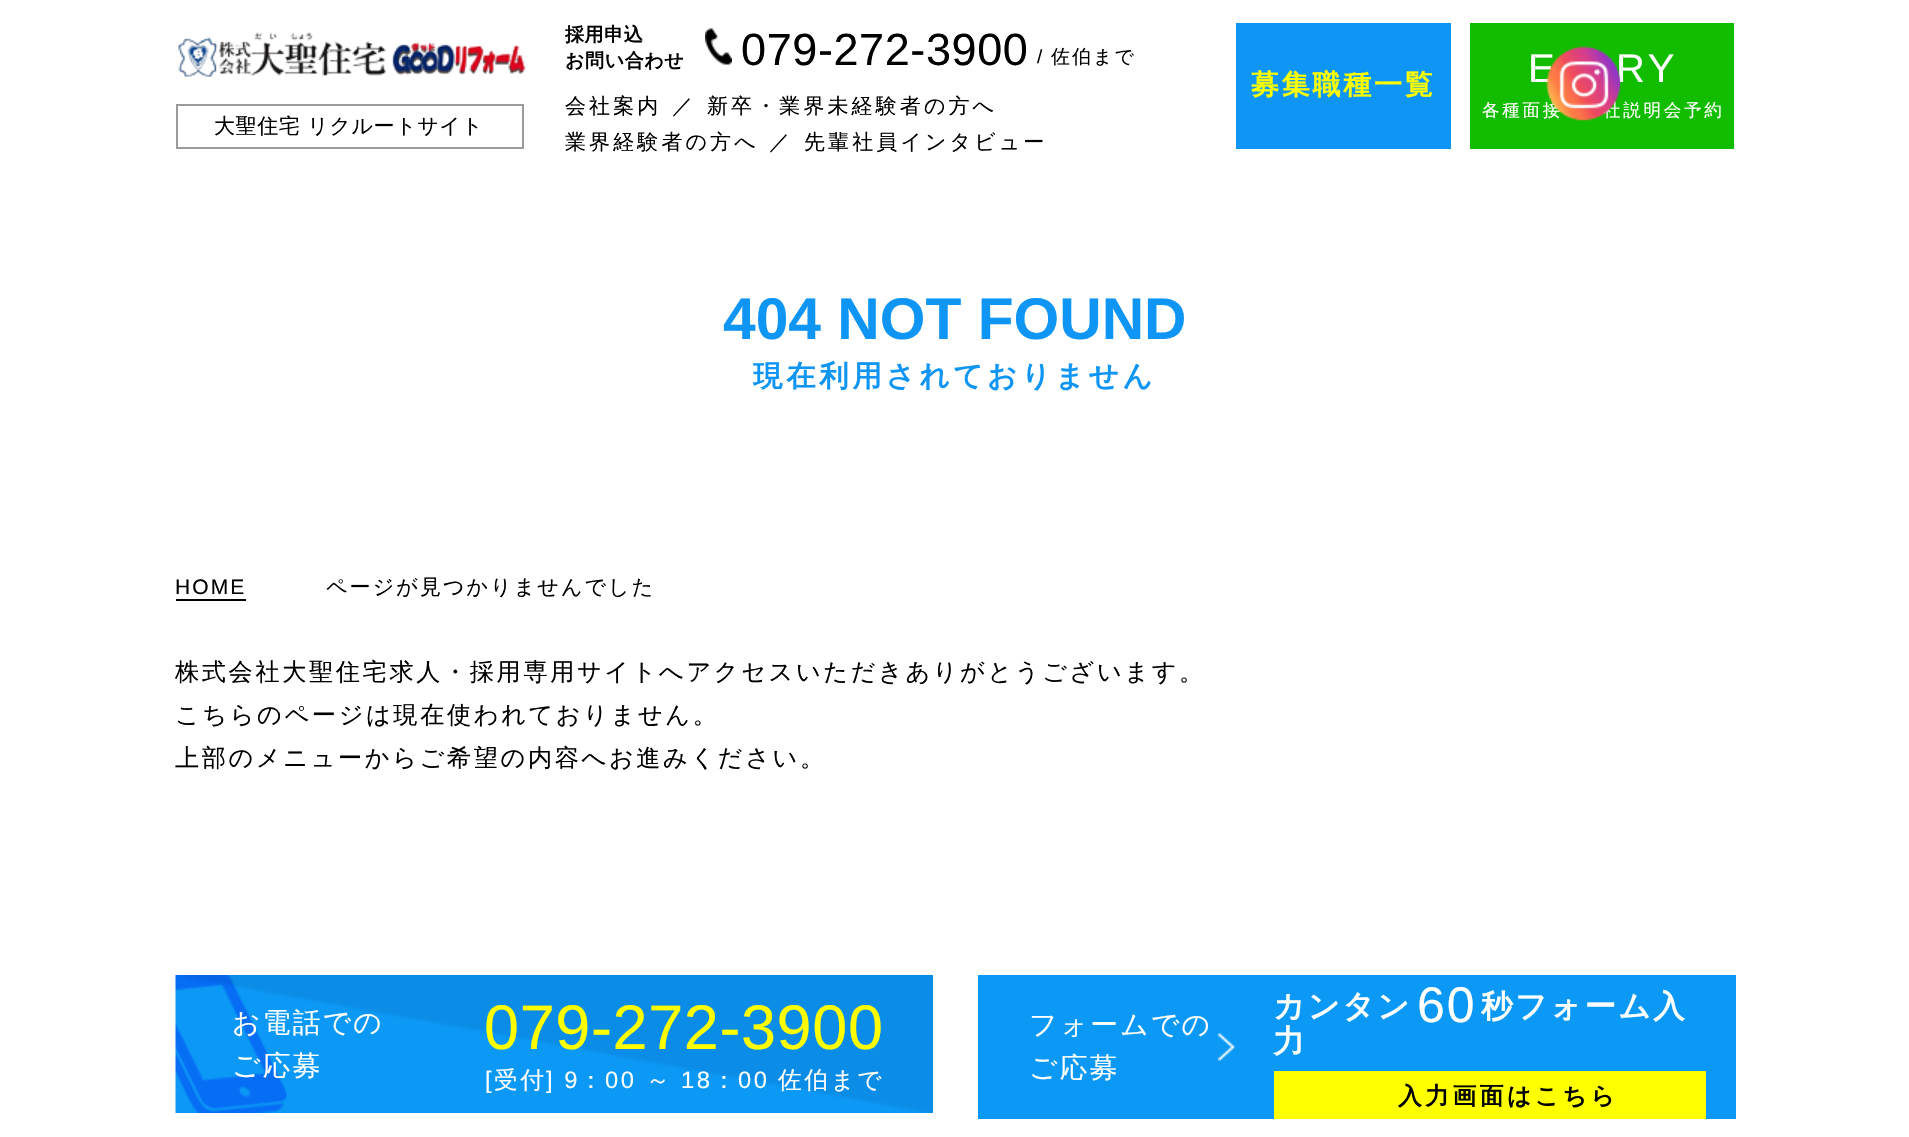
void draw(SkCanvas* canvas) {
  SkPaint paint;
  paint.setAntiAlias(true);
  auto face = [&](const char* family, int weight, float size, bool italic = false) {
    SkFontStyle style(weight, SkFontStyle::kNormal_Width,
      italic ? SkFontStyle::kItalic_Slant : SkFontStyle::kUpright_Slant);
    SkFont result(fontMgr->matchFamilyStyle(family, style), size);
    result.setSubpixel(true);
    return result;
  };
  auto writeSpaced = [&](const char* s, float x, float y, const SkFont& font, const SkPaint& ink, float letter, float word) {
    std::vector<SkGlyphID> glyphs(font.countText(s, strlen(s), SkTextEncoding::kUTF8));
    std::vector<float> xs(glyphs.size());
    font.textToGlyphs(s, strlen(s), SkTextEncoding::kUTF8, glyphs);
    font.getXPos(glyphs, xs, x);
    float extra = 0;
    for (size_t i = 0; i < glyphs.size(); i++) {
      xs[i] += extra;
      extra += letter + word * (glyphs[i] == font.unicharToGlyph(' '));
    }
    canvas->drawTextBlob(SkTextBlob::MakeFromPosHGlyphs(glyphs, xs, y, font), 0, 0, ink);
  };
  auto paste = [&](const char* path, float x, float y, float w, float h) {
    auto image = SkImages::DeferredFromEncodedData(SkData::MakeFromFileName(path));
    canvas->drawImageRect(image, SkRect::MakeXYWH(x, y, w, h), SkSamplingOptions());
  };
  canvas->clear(0xffffffff);
  paste("img/1.png", 705, 28, 27, 37);
  paint.setColor(0xff0f95f3);
  canvas->drawRect(SkRect::MakeXYWH(1236, 23, 215, 126), paint);
  paint.setColor(0xff12bd00);
  canvas->drawRect(SkRect::MakeXYWH(1470, 23, 264, 126), paint);
  paste("img/3.png", 178, 32, 348, 46);
  paint.setStroke(true);
  paint.setStrokeWidth(2);
  paint.setColor(0xff9b9b9b);
  canvas->drawRect(SkRect::MakeXYWH(177, 105, 346, 43), paint);
  paint.setStroke(false);
  paint.setColor(0xff000000);
  canvas->drawRect(SkRect::MakeXYWH(176, 599, 70, 2), paint);
  paste("img/4.png", 175, 975, 758, 138);
  paint.setColor(0xff0c99f5);
  canvas->drawRect(SkRect::MakeXYWH(978, 975, 758, 144), paint);
  paste("img/5.png", 1218, 1033, 17, 28);
  paint.setColor(0xffffff00);
  canvas->drawRect(SkRect::MakeXYWH(1274, 1071, 432, 48), paint);
  auto f0 = face("WenQuanYi Zen Hei", 700, 19);
  paint.setColor(0xff000000);
  writeSpaced("採用申込", 565, 41, f0, paint, 0.6f, 0);
  writeSpaced("お問い合わせ", 565, 67, f0, paint, 0.6f, 0);
  auto f1 = face("Liberation Sans", 400, 45);
  writeSpaced("079-272-3900", 741, 65, f1, paint, 0.6f, 0);
  auto f2 = face("Liberation Sans", 400, 19);
  writeSpaced("/", 1037, 63, f2, paint, 2, 0);
  auto f3 = face("WenQuanYi Zen Hei", 500, 19);
  writeSpaced("佐伯まで", 1051, 63, f3, paint, 2, 0);
  auto f4 = face("WenQuanYi Zen Hei", 500, 21);
  {
    const struct { const char* s; float x, y; } items[] = {
      {"会社案内", 565, 113},
      {"／", 672, 113},
      {"新卒・業界未経験者の方へ", 707, 113},
      {"業界経験者の方へ", 565, 149},
      {"／", 769, 149},
      {"先輩社員インタビュー", 804, 149},
    };
    for (auto [s, x, y] : items) {
      writeSpaced(s, x, y, f4, paint, 3.1f, 0);
    }
  }
  auto f5 = face("WenQuanYi Zen Hei", 700, 28);
  paint.setColor(0xffffff00);
  writeSpaced("募集職種一覧", 1251, 94, f5, paint, 2.75f, 0);
  auto f6 = face("Liberation Sans", 400, 40);
  paint.setColor(0xffffffff);
  writeSpaced("E", 1528, 82, f6, paint, 2.75f, 0);
  writeSpaced("RY", 1616, 82, f6, paint, 2.75f, 0);
  auto f7 = face("WenQuanYi Zen Hei", 500, 17.5f);
  writeSpaced("各種面接", 1482, 116, f7, paint, 2.75f, 0);
  writeSpaced("社説明会予約", 1603, 116, f7, paint, 2.75f, 0);
  paste("img/2.png", 1546, 46, 75, 75);
  paint.setColor(0xff000000);
  writeSpaced("大聖住宅 リクルートサイト", 214, 133, f4, paint, 0.6f, 0);
  auto f8 = face("Liberation Sans", 700, 58.75f);
  paint.setColor(0xff0f95f3);
  canvas->drawString("404 NOT FOUND", 723, 339, f8, paint);
  auto f9 = face("WenQuanYi Zen Hei", 700, 29.4f);
  writeSpaced("現在利用されておりません", 753, 386, f9, paint, 3.75f, 0);
  auto f10 = face("Liberation Sans", 400, 21);
  paint.setColor(0xff000000);
  writeSpaced("HOME", 175, 594, f10, paint, 2.1f, 0);
  writeSpaced("ページが見つかりませんでした", 326, 594, f4, paint, 2.1f, 0);
  auto f11 = face("WenQuanYi Zen Hei", 500, 24.15f);
  {
    const struct { const char* s; float x, y; } items[] = {
      {"株式会社大聖住宅求人・採用専用サイトへアクセスいただきありがとうございます。", 175, 680},
      {"こちらのページは現在使われておりません。", 175, 723},
      {"上部のメニューからご希望の内容へお進みください。", 175, 766},
    };
    for (auto [s, x, y] : items) {
      writeSpaced(s, x, y, f11, paint, 2.65f, 0);
    }
  }
  auto f12 = face("WenQuanYi Zen Hei", 500, 27.75f);
  paint.setColor(0xffffffff);
  writeSpaced("お電話での", 232, 1032, f12, paint, 2.25f, 0);
  writeSpaced("ご応募", 232, 1075, f12, paint, 2.25f, 0);
  auto f13 = face("Liberation Sans", 400, 63);
  paint.setColor(0xffffff00);
  writeSpaced("079-272-3900", 484, 1049, f13, paint, 0.6f, 0);
  auto f14 = face("Liberation Sans", 400, 23.75f);
  paint.setColor(0xffffffff);
  writeSpaced("[", 485, 1088, f14, paint, 2.5f, 0);
  auto f15 = face("WenQuanYi Zen Hei", 500, 23.75f);
  writeSpaced("受付", 494, 1088, f15, paint, 2.5f, 0);
  writeSpaced("] 9", 546, 1088, f14, paint, 2.5f, 0);
  writeSpaced("：", 579, 1088, f15, paint, 2.5f, 0);
  writeSpaced("00", 605, 1088, f14, paint, 2.5f, 0);
  writeSpaced("～", 646, 1088, f15, paint, 2.5f, 0);
  writeSpaced("18", 681, 1088, f14, paint, 2.5f, 0);
  writeSpaced("：", 712, 1088, f15, paint, 2.5f, 0);
  writeSpaced("00", 738, 1088, f14, paint, 2.5f, 0);
  writeSpaced("佐伯まで", 778, 1088, f15, paint, 2.5f, 0);
  writeSpaced("フォームでの", 1029, 1034, f12, paint, 2.25f, 0);
  writeSpaced("ご応募", 1029, 1077, f12, paint, 2.25f, 0);
  auto f16 = face("WenQuanYi Zen Hei", 700, 31.5f);
  writeSpaced("カンタン", 1273, 1017, f16, paint, 2.5f, 0);
  auto f17 = face("Liberation Sans", 400, 50);
  writeSpaced("60", 1417, 1022, f17, paint, 2, 0);
  writeSpaced("秒フォーム入", 1481, 1017, f16, paint, 2.5f, 0);
  writeSpaced("力", 1273, 1052, f16, paint, 2.5f, 0);
  auto f18 = face("WenQuanYi Zen Hei", 700, 23.75f);
  paint.setColor(0xff000000);
  writeSpaced("入力画面はこちら", 1398, 1104, f18, paint, 3.5f, 0);
}
